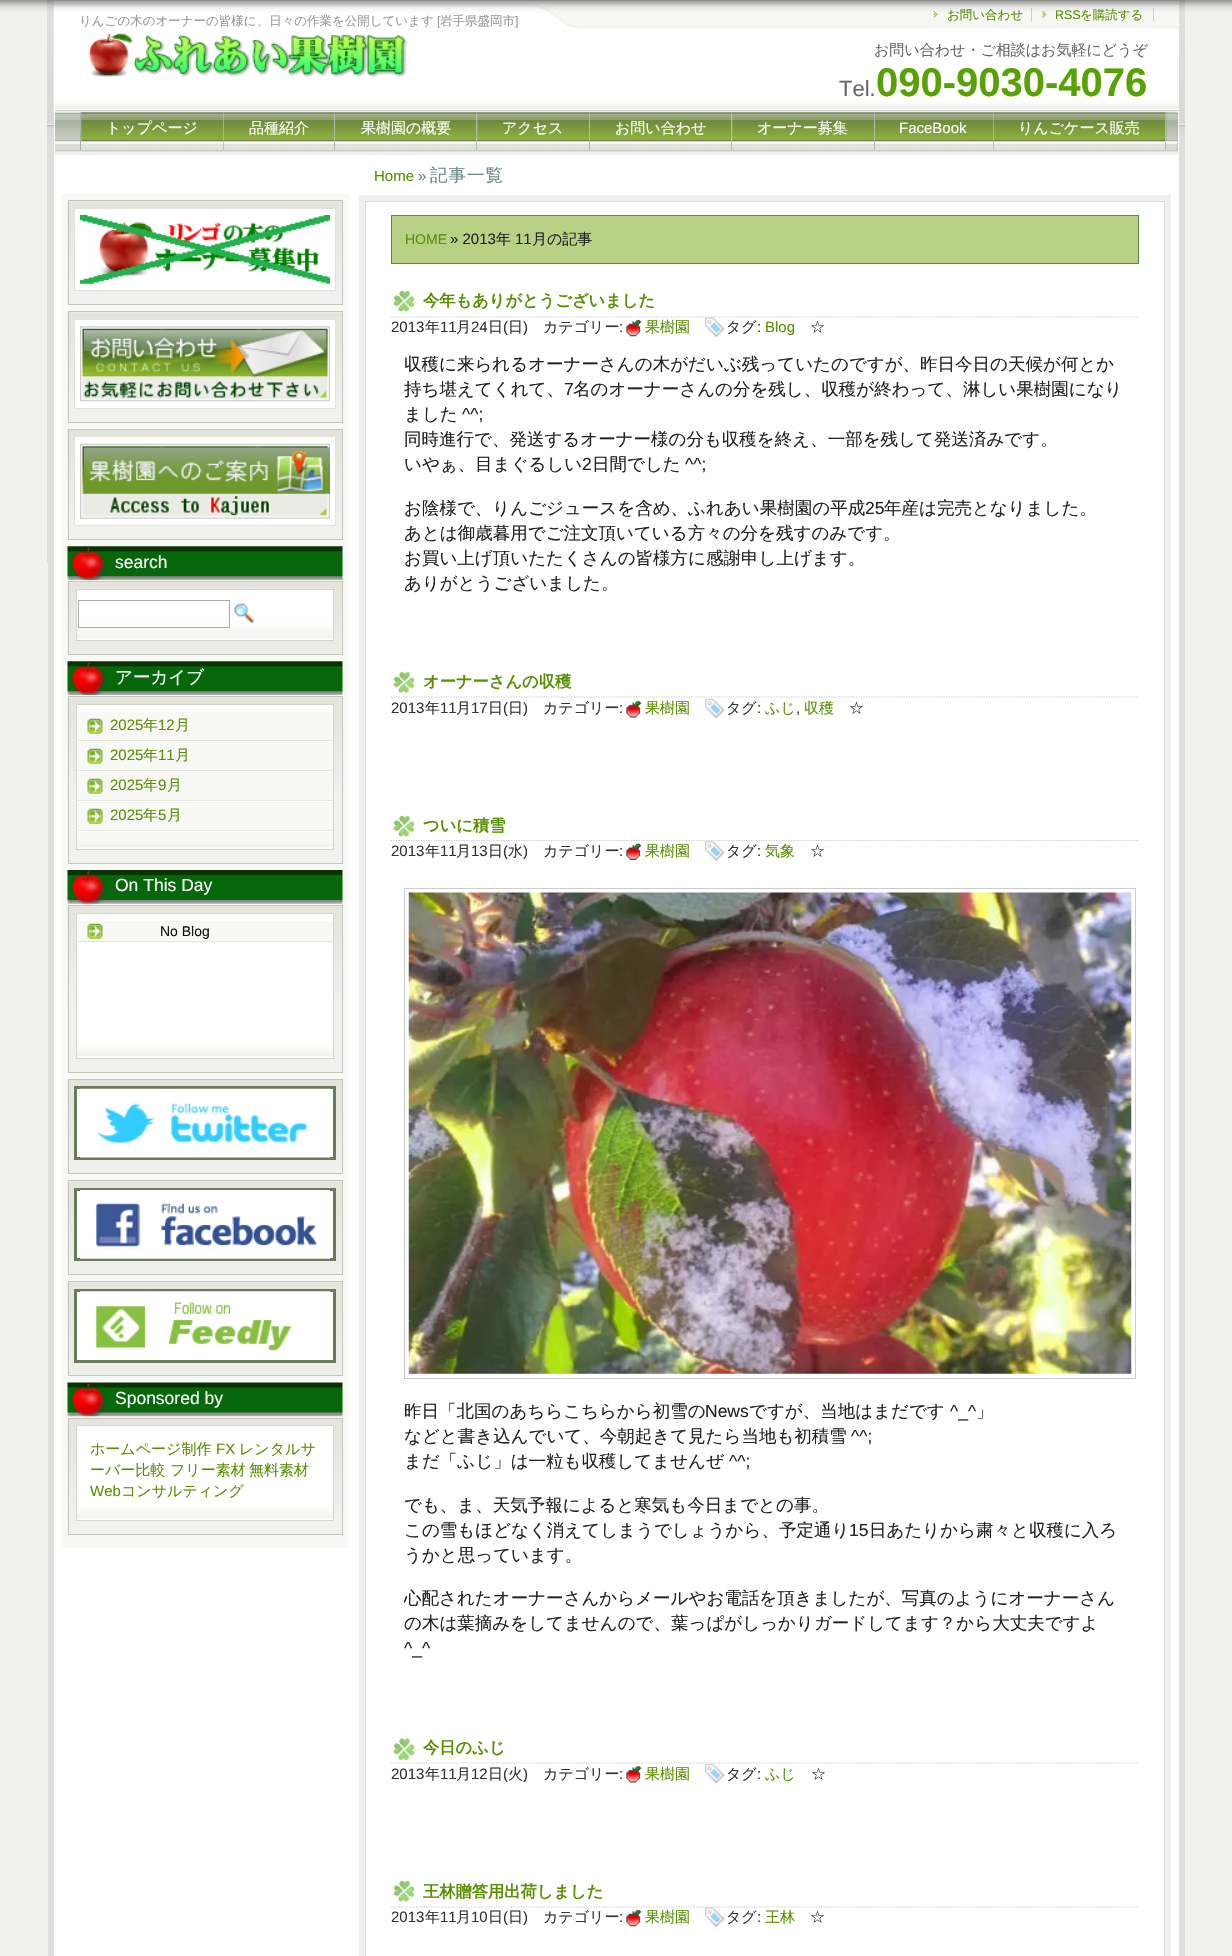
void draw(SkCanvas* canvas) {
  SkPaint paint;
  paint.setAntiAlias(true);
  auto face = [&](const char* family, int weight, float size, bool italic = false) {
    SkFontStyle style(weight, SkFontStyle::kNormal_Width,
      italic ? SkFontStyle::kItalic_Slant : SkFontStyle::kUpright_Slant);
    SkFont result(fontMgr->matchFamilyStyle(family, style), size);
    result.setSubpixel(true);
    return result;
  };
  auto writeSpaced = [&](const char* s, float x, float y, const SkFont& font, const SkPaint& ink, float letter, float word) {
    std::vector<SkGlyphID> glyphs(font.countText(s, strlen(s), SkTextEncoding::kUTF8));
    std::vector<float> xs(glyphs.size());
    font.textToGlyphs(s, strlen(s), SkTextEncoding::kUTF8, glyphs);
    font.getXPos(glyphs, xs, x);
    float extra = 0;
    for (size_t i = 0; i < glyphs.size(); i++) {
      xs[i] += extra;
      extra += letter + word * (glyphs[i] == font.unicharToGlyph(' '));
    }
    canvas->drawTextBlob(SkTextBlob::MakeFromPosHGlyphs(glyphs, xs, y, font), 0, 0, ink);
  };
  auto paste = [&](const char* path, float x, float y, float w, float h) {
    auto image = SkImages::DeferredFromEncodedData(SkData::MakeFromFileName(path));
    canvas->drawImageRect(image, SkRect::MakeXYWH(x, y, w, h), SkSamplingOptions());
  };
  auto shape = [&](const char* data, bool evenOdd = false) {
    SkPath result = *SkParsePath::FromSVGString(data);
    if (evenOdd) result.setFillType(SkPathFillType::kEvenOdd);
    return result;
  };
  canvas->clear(0xfff1f1ed);
  paint.setColor(0xffdedfda);
  canvas->drawRect(SkRect::MakeXYWH(48, 562, 1137, 1394), paint);
  paste("img/1.png", 47, 0, 1138, 563);
  paint.setColor(0xffffffff);
  canvas->drawRect(SkRect::MakeXYWH(54, 1, 1125, 150), paint);
  paste("img/2.png", 53, 1, 1126, 113);
  paste("img/3.png", 933, 11, 5, 7);
  paint.setColor(0xffcccccc);
  canvas->drawRect(SkRect::MakeXYWH(1031, 8, 1, 13), paint);
  paste("img/4.png", 1042, 11, 5, 7);
  canvas->drawRect(SkRect::MakeXYWH(1153, 8, 1, 13), paint);
  paint.setColor(0xcc000000);
  paint.setMaskFilter(SkMaskFilter::MakeBlur(kNormal_SkBlurStyle, 6));
  canvas->drawRect(SkRect::MakeXYWH(-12, -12, 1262, 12), paint);
  paint.setMaskFilter(nullptr);
  paste("img/5.png", 88, 33, 320, 46);
  paint.setColor(0xfff0f0f0);
  canvas->drawRect(SkRect::MakeXYWH(54, 151, 1125, 4), paint);
  paste("img/6.png", 55, 112, 1123, 40);
  paint.setColor(0xffc6c6bf);
  canvas->drawRect(SkRect::MakeXYWH(55, 150, 1123, 1), paint);
  paint.setColor(0xff95a4a4);
  canvas->drawRect(SkRect::MakeXYWH(1177, 113, 1, 37), paint);
  paste("img/7.png", 80, 112, 1098, 38);
  paint.setColor(0xffa7b3b3);
  canvas->drawRect(SkRect::MakeXYWH(80, 113, 1, 37), paint);
  paste("img/8.png", 81, 112, 143, 38);
  paint.setColor(0xffb1bdaa);
  canvas->drawRect(SkRect::MakeXYWH(223, 113, 1, 37), paint);
  paste("img/9.png", 223, 112, 112, 38);
  canvas->drawRect(SkRect::MakeXYWH(334, 113, 1, 37), paint);
  paste("img/10.png", 335, 112, 143, 38);
  canvas->drawRect(SkRect::MakeXYWH(476, 113, 1, 37), paint);
  paste("img/11.png", 477, 112, 113, 38);
  canvas->drawRect(SkRect::MakeXYWH(589, 113, 1, 37), paint);
  paste("img/12.png", 590, 112, 143, 38);
  canvas->drawRect(SkRect::MakeXYWH(731, 113, 1, 37), paint);
  paste("img/13.png", 732, 112, 143, 38);
  canvas->drawRect(SkRect::MakeXYWH(874, 113, 1, 37), paint);
  paste("img/14.png", 875, 112, 119, 38);
  canvas->drawRect(SkRect::MakeXYWH(993, 113, 1, 37), paint);
  paste("img/15.png", 993, 112, 174, 38);
  {
    const struct { float x, y, w, h; SkColor color; } items[] = {
      {1165, 113, 1, 37, 0xffb1bdaa},
      {54, 155, 1125, 1801, 0xffffffff},
      {61, 194, 288, 1354, 0xfff8f8f5},
    };
    for (auto [x, y, w, h, color] : items) {
      paint.setColor(color);
      canvas->drawRect(SkRect::MakeXYWH(x, y, w, h), paint);
    }
  }
  paste("img/16.png", 67, 201, 275, 104);
  paint.setStroke(true);
  paint.setStrokeWidth(1);
  paint.setColor(0xffc5c5be);
  canvas->drawRect(SkRect::MakeXYWH(68.5f, 200.5f, 274, 104), paint);
  paint.setStroke(false);
  paint.setColor(0xffffffff);
  canvas->drawRect(SkRect::MakeXYWH(74.5f, 208.5f, 261, 82), paint);
  paint.setStroke(true);
  paint.setColor(0xffe3e3db);
  canvas->drawRect(SkRect::MakeXYWH(74.5f, 208.5f, 261, 82), paint);
  paste("img/17.png", 80, 215, 250, 69);
  paint.setStroke(false);
  paint.setColor(0xfff1f1ed);
  canvas->drawRect(SkRect::MakeXYWH(69, 312, 273, 1), paint);
  paste("img/18.png", 67, 312, 275, 110);
  paint.setStroke(true);
  paint.setColor(0xffc5c5be);
  canvas->drawRect(SkRect::MakeXYWH(68.5f, 311.5f, 274, 111), paint);
  paint.setStroke(false);
  paint.setColor(0xffffffff);
  canvas->drawRect(SkRect::MakeXYWH(74.5f, 319.5f, 261, 89), paint);
  paint.setStroke(true);
  paint.setColor(0xffe3e3db);
  canvas->drawRect(SkRect::MakeXYWH(74.5f, 319.5f, 261, 89), paint);
  paste("img/19.png", 80, 326, 250, 76);
  paste("img/20.png", 67, 430, 275, 110);
  paint.setColor(0xffc5c5be);
  canvas->drawRect(SkRect::MakeXYWH(68.5f, 429.5f, 274, 110), paint);
  paint.setStroke(false);
  paint.setColor(0xffffffff);
  canvas->drawRect(SkRect::MakeXYWH(74.5f, 436.5f, 261, 89), paint);
  paint.setStroke(true);
  paint.setColor(0xffe3e3db);
  canvas->drawRect(SkRect::MakeXYWH(74.5f, 436.5f, 261, 89), paint);
  paste("img/21.png", 80, 443, 250, 76);
  paste("img/22.png", 67, 546, 276, 34);
  paint.setStroke(false);
  paint.setColor(0xfff1f1ed);
  canvas->drawRect(SkRect::MakeXYWH(69, 582, 273, 1), paint);
  paste("img/23.png", 67, 582, 275, 73);
  paint.setStroke(true);
  paint.setColor(0xffc5c5be);
  canvas->drawRect(SkRect::MakeXYWH(68.5f, 581.5f, 274, 73), paint);
  paint.setStroke(false);
  paint.setColor(0xffffffff);
  canvas->drawRect(SkRect::MakeXYWH(77, 639, 256, 1), paint);
  paste("img/24.png", 76, 588, 258, 51);
  paint.setStroke(true);
  paint.setColor(0xffd6d5cb);
  canvas->drawRect(SkRect::MakeXYWH(76.5f, 589.5f, 257, 51), paint);
  paint.setStroke(false);
  paint.setColor(0xffffffff);
  canvas->drawRect(SkRect::MakeXYWH(79, 624, 150, 3), paint);
  paint.setStroke(true);
  paint.setColor(0xffaaaaaa);
  canvas->drawRect(SkRect::MakeXYWH(78.5f, 600.5f, 151, 27), paint);
  paste("img/25.png", 233, 603, 21, 21);
  paste("img/22.png", 67, 661, 276, 34);
  paint.setStroke(false);
  paint.setColor(0xfff1f1ed);
  canvas->drawRect(SkRect::MakeXYWH(69, 697, 273, 166), paint);
  paste("img/26.png", 67, 697, 275, 125);
  paint.setStroke(true);
  paint.setColor(0xffc5c5be);
  canvas->drawRect(SkRect::MakeXYWH(68.5f, 696.5f, 274, 167), paint);
  paint.setStroke(false);
  paint.setColor(0xffffffff);
  canvas->drawRect(SkRect::MakeXYWH(77, 705, 256, 144), paint);
  paste("img/27.png", 77, 835, 256, 13);
  paint.setStroke(true);
  paint.setColor(0xffd6d5cb);
  canvas->drawRect(SkRect::MakeXYWH(76.5f, 704.5f, 257, 145), paint);
  paint.setStroke(false);
  paint.setColor(0xfff8f8f5);
  canvas->drawRect(SkRect::MakeXYWH(78, 712, 255, 28), paint);
  paste("img/28.png", 87, 718, 16, 16);
  paint.setColor(0xffe7e7e0);
  canvas->drawRect(SkRect::MakeXYWH(78, 740, 255, 1), paint);
  paint.setColor(0xfff8f8f5);
  canvas->drawRect(SkRect::MakeXYWH(78, 742, 255, 28), paint);
  paste("img/28.png", 87, 748, 16, 16);
  paint.setColor(0xffe7e7e0);
  canvas->drawRect(SkRect::MakeXYWH(78, 770, 255, 1), paint);
  paint.setColor(0xfff8f8f5);
  canvas->drawRect(SkRect::MakeXYWH(78, 772, 255, 28), paint);
  paste("img/29.png", 87, 778, 16, 16);
  paint.setColor(0xffe7e7e0);
  canvas->drawRect(SkRect::MakeXYWH(78, 800, 255, 1), paint);
  paint.setColor(0xfff8f8f5);
  canvas->drawRect(SkRect::MakeXYWH(78, 802, 255, 28), paint);
  paste("img/28.png", 87, 808, 16, 16);
  paint.setColor(0xffe7e7e0);
  canvas->drawRect(SkRect::MakeXYWH(78, 830, 255, 1), paint);
  paint.setColor(0xfff8f8f5);
  canvas->drawRect(SkRect::MakeXYWH(78, 832, 255, 4), paint);
  paste("img/30.png", 67, 870, 276, 34);
  paint.setColor(0xfff1f1ed);
  canvas->drawRect(SkRect::MakeXYWH(69, 906, 273, 166), paint);
  paste("img/31.png", 67, 906, 275, 125);
  paint.setStroke(true);
  paint.setColor(0xffc5c5be);
  canvas->drawRect(SkRect::MakeXYWH(68.5f, 905.5f, 274, 167), paint);
  paint.setStroke(false);
  paint.setColor(0xffffffff);
  canvas->drawRect(SkRect::MakeXYWH(77, 914, 256, 144), paint);
  paste("img/32.png", 77, 1044, 256, 13);
  paint.setStroke(true);
  paint.setColor(0xffd6d5cb);
  canvas->drawRect(SkRect::MakeXYWH(76.5f, 913.5f, 257, 145), paint);
  paint.setStroke(false);
  paint.setColor(0xfff8f8f5);
  canvas->drawRect(SkRect::MakeXYWH(78, 921, 255, 22), paint);
  paste("img/28.png", 87, 923, 16, 16);
  paint.setColor(0xffe7e7e0);
  canvas->drawRect(SkRect::MakeXYWH(78, 941, 255, 1), paint);
  paste("img/33.png", 67, 1080, 275, 93);
  paint.setStroke(true);
  paint.setColor(0xffc5c5be);
  canvas->drawRect(SkRect::MakeXYWH(68.5f, 1079.5f, 274, 94), paint);
  paint.setStroke(false);
  paint.setColor(0xffffffff);
  canvas->drawRect(SkRect::MakeXYWH(75.5f, 1087.5f, 259, 71), paint);
  paint.setStroke(true);
  paint.setStrokeWidth(3);
  paint.setColor(0xff6b7b5a);
  canvas->drawRect(SkRect::MakeXYWH(75.5f, 1087.5f, 259, 71), paint);
  paste("img/34.png", 80, 1088, 250, 70);
  paste("img/35.png", 67, 1181, 275, 94);
  paint.setStrokeWidth(1);
  paint.setColor(0xffc5c5be);
  canvas->drawRect(SkRect::MakeXYWH(68.5f, 1180.5f, 274, 94), paint);
  paint.setStroke(false);
  paint.setColor(0xffffffff);
  canvas->drawRect(SkRect::MakeXYWH(75.5f, 1189.5f, 259, 70), paint);
  paint.setStroke(true);
  paint.setStrokeWidth(3);
  paint.setColor(0xff6b7b5a);
  canvas->drawRect(SkRect::MakeXYWH(75.5f, 1189.5f, 259, 70), paint);
  paste("img/36.png", 80, 1190, 250, 69);
  paint.setStroke(false);
  paint.setColor(0xfff1f1ed);
  canvas->drawRect(SkRect::MakeXYWH(69, 1282, 273, 1), paint);
  paste("img/37.png", 67, 1282, 275, 94);
  paint.setStroke(true);
  paint.setStrokeWidth(1);
  paint.setColor(0xffc5c5be);
  canvas->drawRect(SkRect::MakeXYWH(68.5f, 1281.5f, 274, 94), paint);
  paint.setStroke(false);
  paint.setColor(0xffffffff);
  canvas->drawRect(SkRect::MakeXYWH(75.5f, 1290.5f, 259, 71), paint);
  paint.setStroke(true);
  paint.setStrokeWidth(3);
  paint.setColor(0xff6b7b5a);
  canvas->drawRect(SkRect::MakeXYWH(75.5f, 1290.5f, 259, 71), paint);
  paste("img/38.png", 80, 1291, 250, 60);
  paste("img/39.png", 67, 1382, 276, 35);
  paste("img/40.png", 67, 1418, 275, 117);
  paint.setStrokeWidth(1);
  paint.setColor(0xffc5c5be);
  canvas->drawRect(SkRect::MakeXYWH(68.5f, 1418.5f, 274, 116), paint);
  paint.setStroke(false);
  paint.setColor(0xffffffff);
  canvas->drawRect(SkRect::MakeXYWH(77, 1426, 256, 94), paint);
  paste("img/41.png", 77, 1506, 256, 13);
  paint.setStroke(true);
  paint.setColor(0xffd6d5cb);
  canvas->drawRect(SkRect::MakeXYWH(76.5f, 1425.5f, 257, 95), paint);
  paint.setStroke(false);
  paint.setColor(0xffefefed);
  canvas->drawRect(SkRect::MakeXYWH(359, 195, 812, 1761), paint);
  paint.setColor(0xffffffff);
  canvas->drawRect(SkRect::MakeXYWH(365.5f, 201.5f, 799, 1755), paint);
  paint.setStroke(true);
  paint.setColor(0xffdcdcd8);
  canvas->drawRect(SkRect::MakeXYWH(365.5f, 201.5f, 799, 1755), paint);
  paint.setStroke(false);
  paint.setColor(0xffb9d185);
  canvas->drawRect(SkRect::MakeXYWH(391.5f, 215.5f, 747, 48), paint);
  paint.setStroke(true);
  paint.setColor(0xff698248);
  canvas->drawRect(SkRect::MakeXYWH(391.5f, 215.5f, 747, 48), paint);
  paste("img/42.png", 393, 290, 23, 22);
  paint.setStrokeWidth(1.2f);
  paint.setColor(0xffcccccc);
  paint.setPathEffect(SkDashPathEffect::Make({{1.25f, 1.25f}}, 0));
  canvas->drawPath(shape("M391 317H1139"), paint);
  paint.setPathEffect(nullptr);
  paste("img/43.png", 626, 319, 16, 18);
  paste("img/44.png", 705, 317, 20, 21);
  paste("img/45.png", 393, 671, 23, 22);
  paint.setPathEffect(SkDashPathEffect::Make({{1.25f, 1.25f}}, 0));
  canvas->drawPath(shape("M391 697H1139"), paint);
  paint.setPathEffect(nullptr);
  paste("img/46.png", 626, 701, 16, 17);
  paste("img/47.png", 705, 698, 20, 21);
  paste("img/48.png", 393, 815, 23, 22);
  paint.setPathEffect(SkDashPathEffect::Make({{1.25f, 1.25f}}, 0));
  canvas->drawPath(shape("M391 840.5H1139"), paint);
  paint.setPathEffect(nullptr);
  paste("img/49.png", 626, 843, 16, 17);
  paste("img/50.png", 705, 841, 20, 20);
  paint.setStrokeWidth(1);
  canvas->drawRect(SkRect::MakeXYWH(404.5f, 888.5f, 731, 490), paint);
  paste("img/51.png", 408, 892, 724, 482);
  paste("img/52.png", 393, 1737, 23, 24);
  paint.setStrokeWidth(1.2f);
  paint.setPathEffect(SkDashPathEffect::Make({{1.25f, 1.25f}}, 0));
  canvas->drawPath(shape("M391 1763H1139"), paint);
  paint.setPathEffect(nullptr);
  paste("img/46.png", 626, 1766, 16, 17);
  paste("img/53.png", 705, 1763, 20, 21);
  paste("img/48.png", 393, 1880, 23, 22);
  paint.setPathEffect(SkDashPathEffect::Make({{1.25f, 1.25f}}, 0));
  canvas->drawPath(shape("M391 1907H1139"), paint);
  paint.setPathEffect(nullptr);
  paste("img/43.png", 626, 1909, 16, 18);
  paste("img/44.png", 705, 1907, 20, 21);
  auto f0 = face("WenQuanYi Zen Hei", 500, 12.5f);
  paint.setStroke(false);
  paint.setColor(0xff999999);
  canvas->drawString("りんごの木のオーナーの皆様に、日々の作業を公開しています", 79, 25, f0, paint);
  auto f1 = face("Liberation Sans", 400, 12.5f);
  canvas->drawString("[", 437, 25, f1, paint);
  canvas->drawString("岩手県盛岡市", 440, 25, f0, paint);
  canvas->drawString("]", 515, 25, f1, paint);
  paint.setColor(0xff579100);
  canvas->drawString("お問い合わせ", 947, 19, f0, paint);
  canvas->drawString("RSS", 1055, 19, f1, paint);
  canvas->drawString("を購読する", 1080, 19, f0, paint);
  auto f2 = face("WenQuanYi Zen Hei", 500, 15);
  paint.setColor(0xff666666);
  canvas->drawString("お問い合わせ・ご相談はお気軽にどうぞ", 874, 55, f2, paint);
  auto f3 = face("Liberation Sans", 400, 22);
  canvas->drawString("Tel.", 839, 96, f3, paint);
  auto f4 = face("Liberation Sans", 700, 40);
  paint.setColor(0xff55a200);
  canvas->drawString("090-9030-4076", 876, 96, f4, paint);
  paint.setColor(0xffffffff);
  {
    const struct { const char* s; float x, y; } items[] = {
      {"トップページ", 106, 133},
      {"品種紹介", 249, 133},
      {"果樹園の概要", 361, 133},
      {"アクセス", 502, 133},
      {"お問い合わせ", 615, 133},
      {"オーナー募集", 757, 133},
    };
    for (auto [s, x, y] : items) {
      canvas->drawString(s, x, y, f2, paint);
    }
  }
  auto f5 = face("Liberation Sans", 400, 15);
  canvas->drawString("FaceBook", 899, 133, f5, paint);
  canvas->drawString("りんごケース販売", 1018, 133, f2, paint);
  paint.setColor(0xff579100);
  canvas->drawString("Home", 374, 181, f5, paint);
  paint.setColor(0xff6b878b);
  canvas->drawString("»", 418, 181, f5, paint);
  auto f6 = face("WenQuanYi Zen Hei", 500, 17.5f);
  writeSpaced("記事一覧", 430, 181, f6, paint, 1, 0);
  auto f7 = face("Liberation Sans", 400, 17.5f);
  paint.setColor(0xffffffff);
  canvas->drawString("search", 115, 568, f7, paint);
  canvas->drawString("アーカイブ", 115, 683, f6, paint);
  paint.setColor(0xff579100);
  canvas->drawString("2025", 110, 730, f5, paint);
  canvas->drawString("年", 143, 730, f2, paint);
  canvas->drawString("12", 158, 730, f5, paint);
  canvas->drawString("月", 175, 730, f2, paint);
  canvas->drawString("2025", 110, 760, f5, paint);
  canvas->drawString("年", 143, 760, f2, paint);
  canvas->drawString("11", 158, 760, f5, paint);
  canvas->drawString("月", 175, 760, f2, paint);
  canvas->drawString("2025", 110, 790, f5, paint);
  canvas->drawString("年", 143, 790, f2, paint);
  canvas->drawString("9", 158, 790, f5, paint);
  canvas->drawString("月", 167, 790, f2, paint);
  canvas->drawString("2025", 110, 820, f5, paint);
  canvas->drawString("年", 143, 820, f2, paint);
  canvas->drawString("5", 158, 820, f5, paint);
  canvas->drawString("月", 167, 820, f2, paint);
  paint.setColor(0xffffffff);
  canvas->drawString("On This Day", 115, 891, f7, paint);
  auto f8 = face("Liberation Sans", 400, 14);
  paint.setColor(0xff14130c);
  canvas->drawString("No Blog", 160, 936, f8, paint);
  paint.setColor(0xffffffff);
  canvas->drawString("Sponsored by", 115, 1404, f7, paint);
  paint.setColor(0xff579100);
  canvas->drawString("ホームページ制作", 90, 1454, f2, paint);
  canvas->drawString("FX", 216, 1454, f5, paint);
  {
    const struct { const char* s; float x, y; } items[] = {
      {"レンタルサ", 239, 1454},
      {"ーバー比較", 90, 1475},
      {"フリー素材", 170, 1475},
      {"無料素材", 249, 1475},
    };
    for (auto [s, x, y] : items) {
      canvas->drawString(s, x, y, f2, paint);
    }
  }
  canvas->drawString("Web", 90, 1496, f5, paint);
  canvas->drawString("コンサルティング", 121, 1496, f2, paint);
  canvas->drawString("HOME", 405, 244, f8, paint);
  paint.setColor(0xff222222);
  canvas->drawString("» 2013", 450, 244, f5, paint);
  canvas->drawString("年", 496, 244, f2, paint);
  canvas->drawString("11", 515, 244, f5, paint);
  canvas->drawString("月の記事", 532, 244, f2, paint);
  auto f9 = face("WenQuanYi Zen Hei", 700, 16.25f);
  paint.setColor(0xff579100);
  canvas->drawString("今年もありがとうございました", 423, 306, f9, paint);
  paint.setColor(0xff333333);
  canvas->drawString("2013", 391, 332, f5, paint);
  canvas->drawString("年", 425, 332, f2, paint);
  canvas->drawString("11", 440, 332, f5, paint);
  canvas->drawString("月", 456, 332, f2, paint);
  canvas->drawString("24", 471, 332, f5, paint);
  canvas->drawString("日", 488, 332, f2, paint);
  canvas->drawString("(", 503, 332, f5, paint);
  canvas->drawString("日", 508, 332, f2, paint);
  canvas->drawString(")", 523, 332, f5, paint);
  canvas->drawString("カテゴリー", 543, 332, f2, paint);
  canvas->drawString(":", 619, 332, f5, paint);
  paint.setColor(0xff579100);
  canvas->drawString("果樹園", 645, 332, f2, paint);
  paint.setColor(0xff333333);
  canvas->drawString("タグ", 726, 332, f2, paint);
  canvas->drawString(":", 757, 332, f5, paint);
  paint.setColor(0xff579100);
  canvas->drawString("Blog", 765, 332, f5, paint);
  paint.setColor(0xff333333);
  canvas->drawString("☆", 810, 332, f2, paint);
  paint.setColor(0xff222222);
  canvas->drawString("収穫に来られるオーナーさんの木がだいぶ残っていたのですが、昨日今日の天候が何とか", 404, 370, f6, paint);
  canvas->drawString("持ち堪えてくれて、", 404, 395, f6, paint);
  canvas->drawString("7", 564, 395, f7, paint);
  canvas->drawString("名のオーナーさんの分を残し、収穫が終わって、淋しい果樹園になり", 573, 395, f6, paint);
  canvas->drawString("ました", 404, 420, f6, paint);
  canvas->drawString("^^;", 462, 420, f7, paint);
  canvas->drawString("同時進行で、発送するオーナー様の分も収穫を終え、一部を残して発送済みです。", 404, 445, f6, paint);
  canvas->drawString("いやぁ、目まぐるしい", 404, 470, f6, paint);
  canvas->drawString("2", 582, 470, f7, paint);
  canvas->drawString("日間でした", 592, 470, f6, paint);
  canvas->drawString("^^;", 685, 470, f7, paint);
  canvas->drawString("お陰様で、りんごジュースを含め、ふれあい果樹園の平成", 404, 514, f6, paint);
  canvas->drawString("25", 865, 514, f7, paint);
  {
    const struct { const char* s; float x, y; } items[] = {
      {"年産は完売となりました。", 884, 514},
      {"あとは御歳暮用でご注文頂いている方々の分を残すのみです。", 404, 539},
      {"お買い上げ頂いたたくさんの皆様方に感謝申し上げます。", 404, 564},
      {"ありがとうございました。", 404, 589},
    };
    for (auto [s, x, y] : items) {
      canvas->drawString(s, x, y, f6, paint);
    }
  }
  paint.setColor(0xff579100);
  canvas->drawString("オーナーさんの収穫", 423, 687, f9, paint);
  paint.setColor(0xff333333);
  canvas->drawString("2013", 391, 713, f5, paint);
  canvas->drawString("年", 425, 713, f2, paint);
  canvas->drawString("11", 440, 713, f5, paint);
  canvas->drawString("月", 456, 713, f2, paint);
  canvas->drawString("17", 471, 713, f5, paint);
  canvas->drawString("日", 488, 713, f2, paint);
  canvas->drawString("(", 503, 713, f5, paint);
  canvas->drawString("日", 508, 713, f2, paint);
  canvas->drawString(")", 523, 713, f5, paint);
  canvas->drawString("カテゴリー", 543, 713, f2, paint);
  canvas->drawString(":", 619, 713, f5, paint);
  paint.setColor(0xff579100);
  canvas->drawString("果樹園", 645, 713, f2, paint);
  paint.setColor(0xff333333);
  canvas->drawString("タグ", 726, 713, f2, paint);
  canvas->drawString(":", 757, 713, f5, paint);
  paint.setColor(0xff579100);
  canvas->drawString("ふじ", 765, 713, f2, paint);
  paint.setColor(0xff333333);
  canvas->drawString(",", 796, 713, f5, paint);
  paint.setColor(0xff579100);
  canvas->drawString("収穫", 804, 713, f2, paint);
  paint.setColor(0xff333333);
  canvas->drawString("☆", 849, 713, f2, paint);
  paint.setColor(0xff579100);
  canvas->drawString("ついに積雪", 423, 831, f9, paint);
  paint.setColor(0xff333333);
  canvas->drawString("2013", 391, 856, f5, paint);
  canvas->drawString("年", 425, 856, f2, paint);
  canvas->drawString("11", 440, 856, f5, paint);
  canvas->drawString("月", 456, 856, f2, paint);
  canvas->drawString("13", 471, 856, f5, paint);
  canvas->drawString("日", 488, 856, f2, paint);
  canvas->drawString("(", 503, 856, f5, paint);
  canvas->drawString("水", 508, 856, f2, paint);
  canvas->drawString(")", 523, 856, f5, paint);
  canvas->drawString("カテゴリー", 543, 856, f2, paint);
  canvas->drawString(":", 619, 856, f5, paint);
  paint.setColor(0xff579100);
  canvas->drawString("果樹園", 645, 856, f2, paint);
  paint.setColor(0xff333333);
  canvas->drawString("タグ", 726, 856, f2, paint);
  canvas->drawString(":", 757, 856, f5, paint);
  paint.setColor(0xff579100);
  canvas->drawString("気象", 765, 856, f2, paint);
  paint.setColor(0xff333333);
  canvas->drawString("☆", 810, 856, f2, paint);
  paint.setColor(0xff222222);
  canvas->drawString("昨日「北国のあちらこちらから初雪の", 404, 1417, f6, paint);
  canvas->drawString("News", 705, 1417, f7, paint);
  canvas->drawString("ですが、当地はまだです", 749, 1417, f6, paint);
  canvas->drawString("^_^", 950, 1417, f7, paint);
  canvas->drawString("」", 976, 1417, f6, paint);
  canvas->drawString("などと書き込んでいて、今朝起きて見たら当地も初積雪", 404, 1442, f6, paint);
  canvas->drawString("^^;", 851, 1442, f7, paint);
  canvas->drawString("まだ「ふじ」は一粒も収穫してませんぜ", 404, 1467, f6, paint);
  canvas->drawString("^^;", 729, 1467, f7, paint);
  canvas->drawString("でも、ま、天気予報によると寒気も今日までとの事。", 404, 1511, f6, paint);
  canvas->drawString("この雪もほどなく消えてしまうでしょうから、予定通り", 404, 1536, f6, paint);
  canvas->drawString("15", 849, 1536, f7, paint);
  {
    const struct { const char* s; float x, y; } items[] = {
      {"日あたりから粛々と収穫に入ろ", 869, 1536},
      {"うかと思っています。", 404, 1561},
      {"心配されたオーナーさんからメールやお電話を頂きましたが、写真のようにオーナーさん", 404, 1604},
      {"の木は葉摘みをしてませんので、葉っぱがしっかりガードしてます？から大丈夫ですよ", 404, 1629},
    };
    for (auto [s, x, y] : items) {
      canvas->drawString(s, x, y, f6, paint);
    }
  }
  canvas->drawString("^_^", 404, 1654, f7, paint);
  paint.setColor(0xff579100);
  canvas->drawString("今日のふじ", 423, 1753, f9, paint);
  paint.setColor(0xff333333);
  canvas->drawString("2013", 391, 1779, f5, paint);
  canvas->drawString("年", 425, 1779, f2, paint);
  canvas->drawString("11", 440, 1779, f5, paint);
  canvas->drawString("月", 456, 1779, f2, paint);
  canvas->drawString("12", 471, 1779, f5, paint);
  canvas->drawString("日", 488, 1779, f2, paint);
  canvas->drawString("(", 503, 1779, f5, paint);
  canvas->drawString("火", 508, 1779, f2, paint);
  canvas->drawString(")", 523, 1779, f5, paint);
  canvas->drawString("カテゴリー", 543, 1779, f2, paint);
  canvas->drawString(":", 619, 1779, f5, paint);
  paint.setColor(0xff579100);
  canvas->drawString("果樹園", 645, 1779, f2, paint);
  paint.setColor(0xff333333);
  canvas->drawString("タグ", 726, 1779, f2, paint);
  canvas->drawString(":", 757, 1779, f5, paint);
  paint.setColor(0xff579100);
  canvas->drawString("ふじ", 765, 1779, f2, paint);
  paint.setColor(0xff333333);
  canvas->drawString("☆", 811, 1779, f2, paint);
  paint.setColor(0xff579100);
  canvas->drawString("王林贈答用出荷しました", 423, 1897, f9, paint);
  paint.setColor(0xff333333);
  canvas->drawString("2013", 391, 1922, f5, paint);
  canvas->drawString("年", 425, 1922, f2, paint);
  canvas->drawString("11", 440, 1922, f5, paint);
  canvas->drawString("月", 456, 1922, f2, paint);
  canvas->drawString("10", 471, 1922, f5, paint);
  canvas->drawString("日", 488, 1922, f2, paint);
  canvas->drawString("(", 503, 1922, f5, paint);
  canvas->drawString("日", 508, 1922, f2, paint);
  canvas->drawString(")", 523, 1922, f5, paint);
  canvas->drawString("カテゴリー", 543, 1922, f2, paint);
  canvas->drawString(":", 619, 1922, f5, paint);
  paint.setColor(0xff579100);
  canvas->drawString("果樹園", 645, 1922, f2, paint);
  paint.setColor(0xff333333);
  canvas->drawString("タグ", 726, 1922, f2, paint);
  canvas->drawString(":", 757, 1922, f5, paint);
  paint.setColor(0xff579100);
  canvas->drawString("王林", 765, 1922, f2, paint);
  paint.setColor(0xff333333);
  canvas->drawString("☆", 810, 1922, f2, paint);
}
